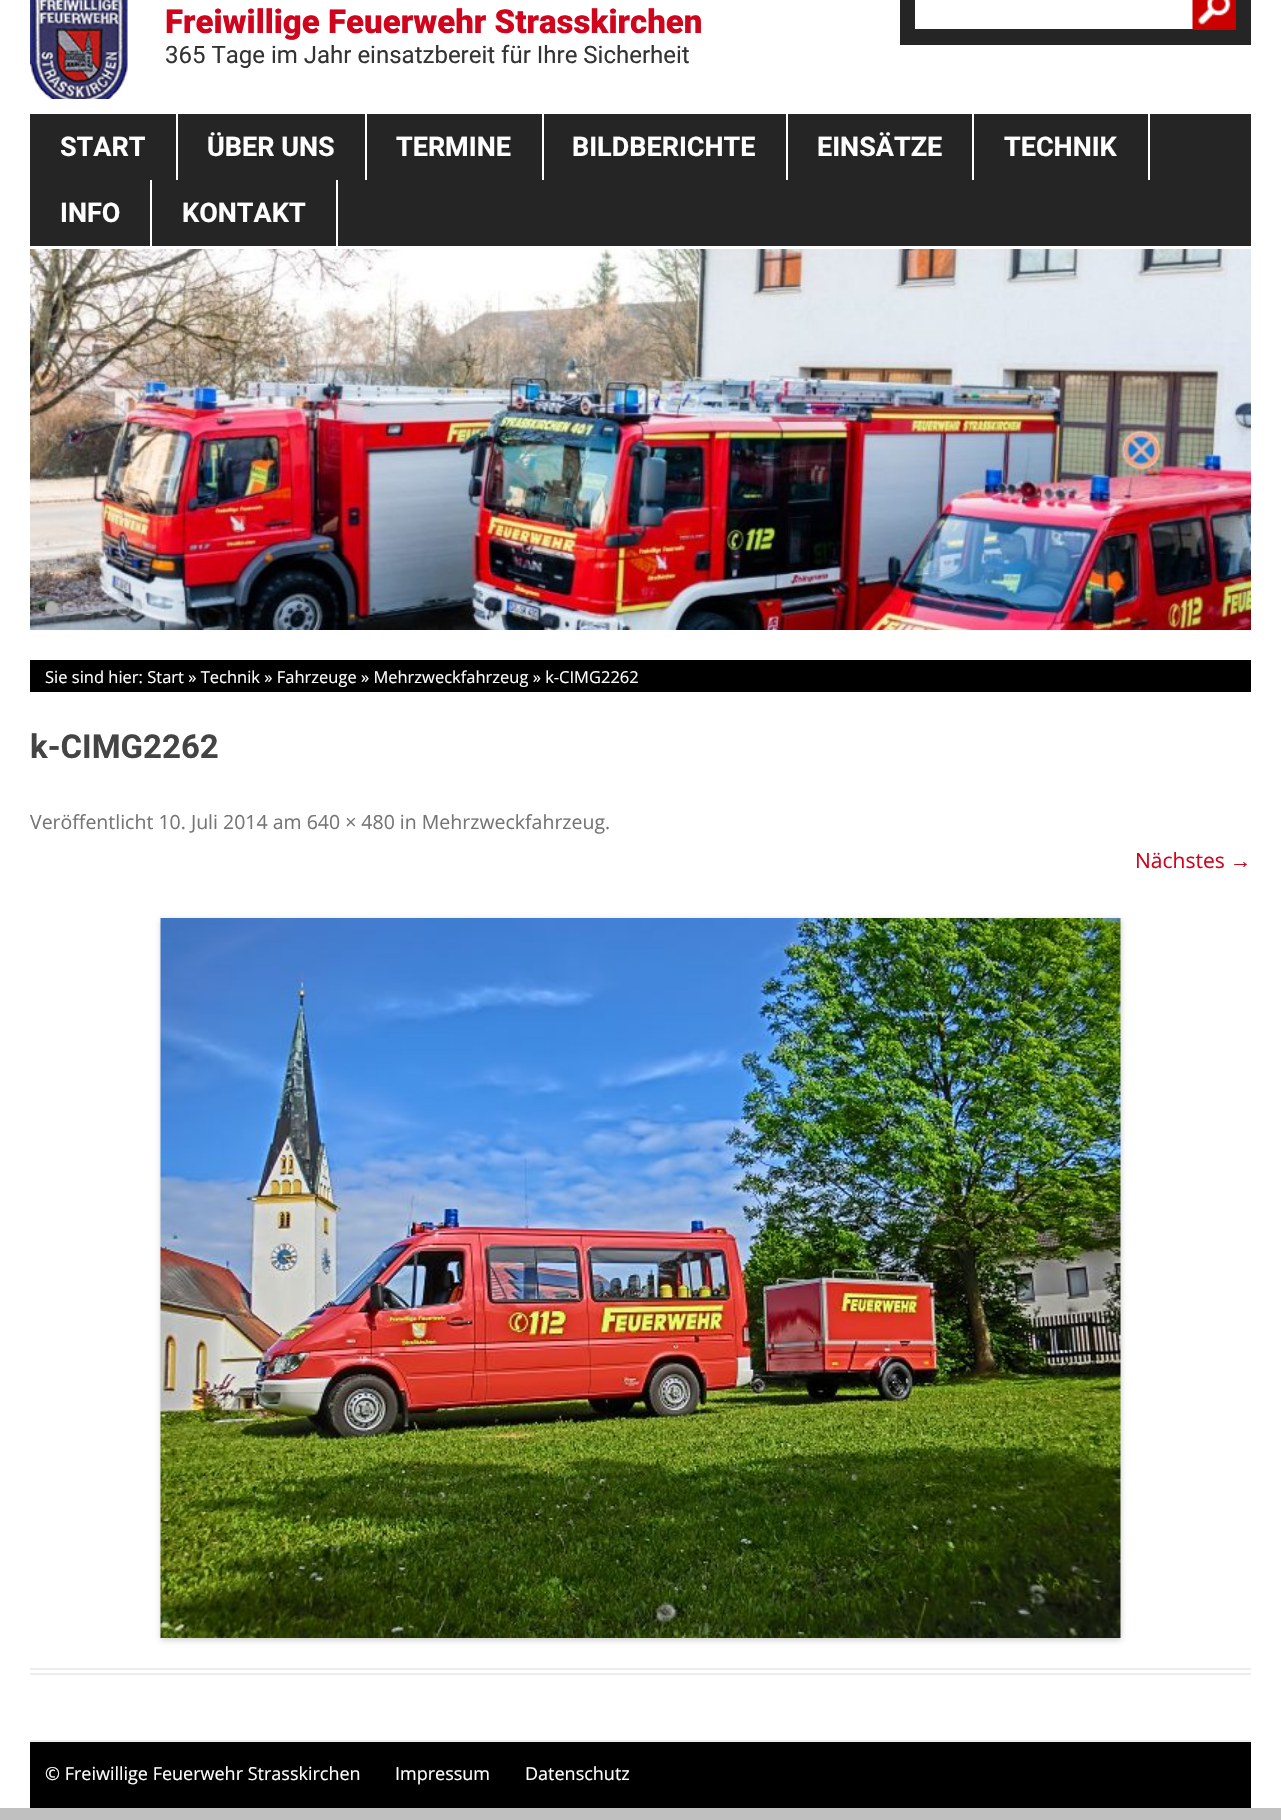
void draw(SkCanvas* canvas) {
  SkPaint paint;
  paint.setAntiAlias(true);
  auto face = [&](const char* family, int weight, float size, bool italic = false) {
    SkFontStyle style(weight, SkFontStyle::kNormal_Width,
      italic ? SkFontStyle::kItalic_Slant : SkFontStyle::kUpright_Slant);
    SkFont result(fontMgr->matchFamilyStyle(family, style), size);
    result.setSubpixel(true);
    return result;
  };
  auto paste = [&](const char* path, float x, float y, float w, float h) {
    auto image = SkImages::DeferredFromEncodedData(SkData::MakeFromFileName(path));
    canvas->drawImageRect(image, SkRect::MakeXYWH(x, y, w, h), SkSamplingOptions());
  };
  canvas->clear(0xffc0c0c0);
  paint.setColor(0xffffffff);
  canvas->drawRect(SkRect::MakeXYWH(0, 0, 1281, 1808), paint);
  paste("img/1.png", 30, 0, 98, 99);
  paint.setColor(0xff252525);
  canvas->drawRect(SkRect::MakeXYWH(900, 0, 351, 45), paint);
  paint.setColor(0xffffffff);
  canvas->drawRect(SkRect::MakeXYWH(915, 0, 278, 29), paint);
  paste("img/2.png", 1192, 0, 44, 30);
  {
    const struct { float x, y, w, h; SkColor color; } items[] = {
      {30, 114, 1221, 132, 0xff252525},
      {176, 114, 2, 66, 0xffffffff},
      {365, 114, 2, 66, 0xffffffff},
      {542, 114, 2, 66, 0xffffffff},
      {786, 114, 2, 66, 0xffffffff},
      {972, 114, 2, 66, 0xffffffff},
      {1148, 114, 2, 66, 0xffffffff},
      {150, 180, 2, 66, 0xffffffff},
      {336, 180, 2, 66, 0xffffffff},
    };
    for (auto [x, y, w, h, color] : items) {
      paint.setColor(color);
      canvas->drawRect(SkRect::MakeXYWH(x, y, w, h), paint);
    }
  }
  paste("img/3.png", 30, 249, 1221, 381);
  paste("img/4.png", 45, 601, 14, 14);
  paste("img/5.png", 63, 601, 14, 14);
  paste("img/6.png", 81, 601, 14, 14);
  paste("img/7.png", 99, 601, 14, 14);
  paste("img/8.png", 117, 601, 14, 14);
  {
    const struct { float x, y, w, h; SkColor color; } items[] = {
      {30, 660, 1221, 32, 0xff000000},
      {30, 1668, 1221, 2, 0xffededed},
      {30, 1673, 1221, 2, 0xffededed},
    };
    for (auto [x, y, w, h, color] : items) {
      paint.setColor(color);
      canvas->drawRect(SkRect::MakeXYWH(x, y, w, h), paint);
    }
  }
  paint.setColor(0x33000000);
  paint.setMaskFilter(SkMaskFilter::MakeBlur(kNormal_SkBlurStyle, 3));
  canvas->drawRect(SkRect::MakeXYWH(161, 920, 960, 720), paint);
  paint.setMaskFilter(nullptr);
  paste("img/9.png", 160, 918, 961, 720);
  paint.setColor(0xff000000);
  canvas->drawRect(SkRect::MakeXYWH(30, 1742, 1221, 66), paint);
  paint.setColor(0xffededed);
  canvas->drawRect(SkRect::MakeXYWH(30, 1740, 1221, 2), paint);
  auto f0 = face("Roboto", 900, 33);
  paint.setColor(0xffd0041c);
  canvas->drawString("Freiwillige Feuerwehr Strasskirchen", 165, 33, f0, paint);
  auto f1 = face("Roboto", 400, 24);
  paint.setColor(0xff333333);
  canvas->drawString("365 Tage im Jahr einsatzbereit für Ihre Sicherheit", 165, 63, f1, paint);
  auto f2 = face("Roboto", 700, 27);
  paint.setColor(0xffffffff);
  {
    const struct { const char* s; float x, y; } items[] = {
      {"START", 60, 156},
      {"ÜBER UNS", 207, 156},
      {"TERMINE", 396, 156},
      {"BILDBERICHTE", 572, 156},
      {"EINSÄTZE", 817, 156},
      {"TECHNIK", 1004, 156},
      {"INFO", 60, 222},
      {"KONTAKT", 182, 222},
    };
    for (auto [s, x, y] : items) {
      canvas->drawString(s, x, y, f2, paint);
    }
  }
  auto f3 = face("Open Sans", 400, 16.5f);
  canvas->drawString("Sie sind hier: Start » Technik » Fahrzeuge » Mehrzweckfahrzeug » k-CIMG2262", 45, 683, f3, paint);
  auto f4 = face("Roboto", 700, 33);
  paint.setColor(0xff444444);
  canvas->drawString("k-CIMG2262", 30, 758, f4, paint);
  auto f5 = face("Open Sans", 400, 19.5f);
  paint.setColor(0xff757575);
  canvas->drawString("Veröffentlicht 10. Juli 2014 am 640 × 480 in Mehrzweckfahrzeug.", 30, 829, f5, paint);
  auto f6 = face("Open Sans", 400, 21);
  paint.setColor(0xffd0041c);
  canvas->drawString("Nächstes", 1135, 868, f6, paint);
  auto f7 = face("Liberation Sans", 400, 21);
  canvas->drawString("→", 1230, 868, f7, paint);
  auto f8 = face("Open Sans", 400, 18);
  paint.setColor(0xffffffff);
  {
    const struct { const char* s; float x, y; } items[] = {
      {"© Freiwillige Feuerwehr Strasskirchen", 45, 1780},
      {"Impressum", 395, 1780},
      {"Datenschutz", 525, 1780},
    };
    for (auto [s, x, y] : items) {
      canvas->drawString(s, x, y, f8, paint);
    }
  }
}
